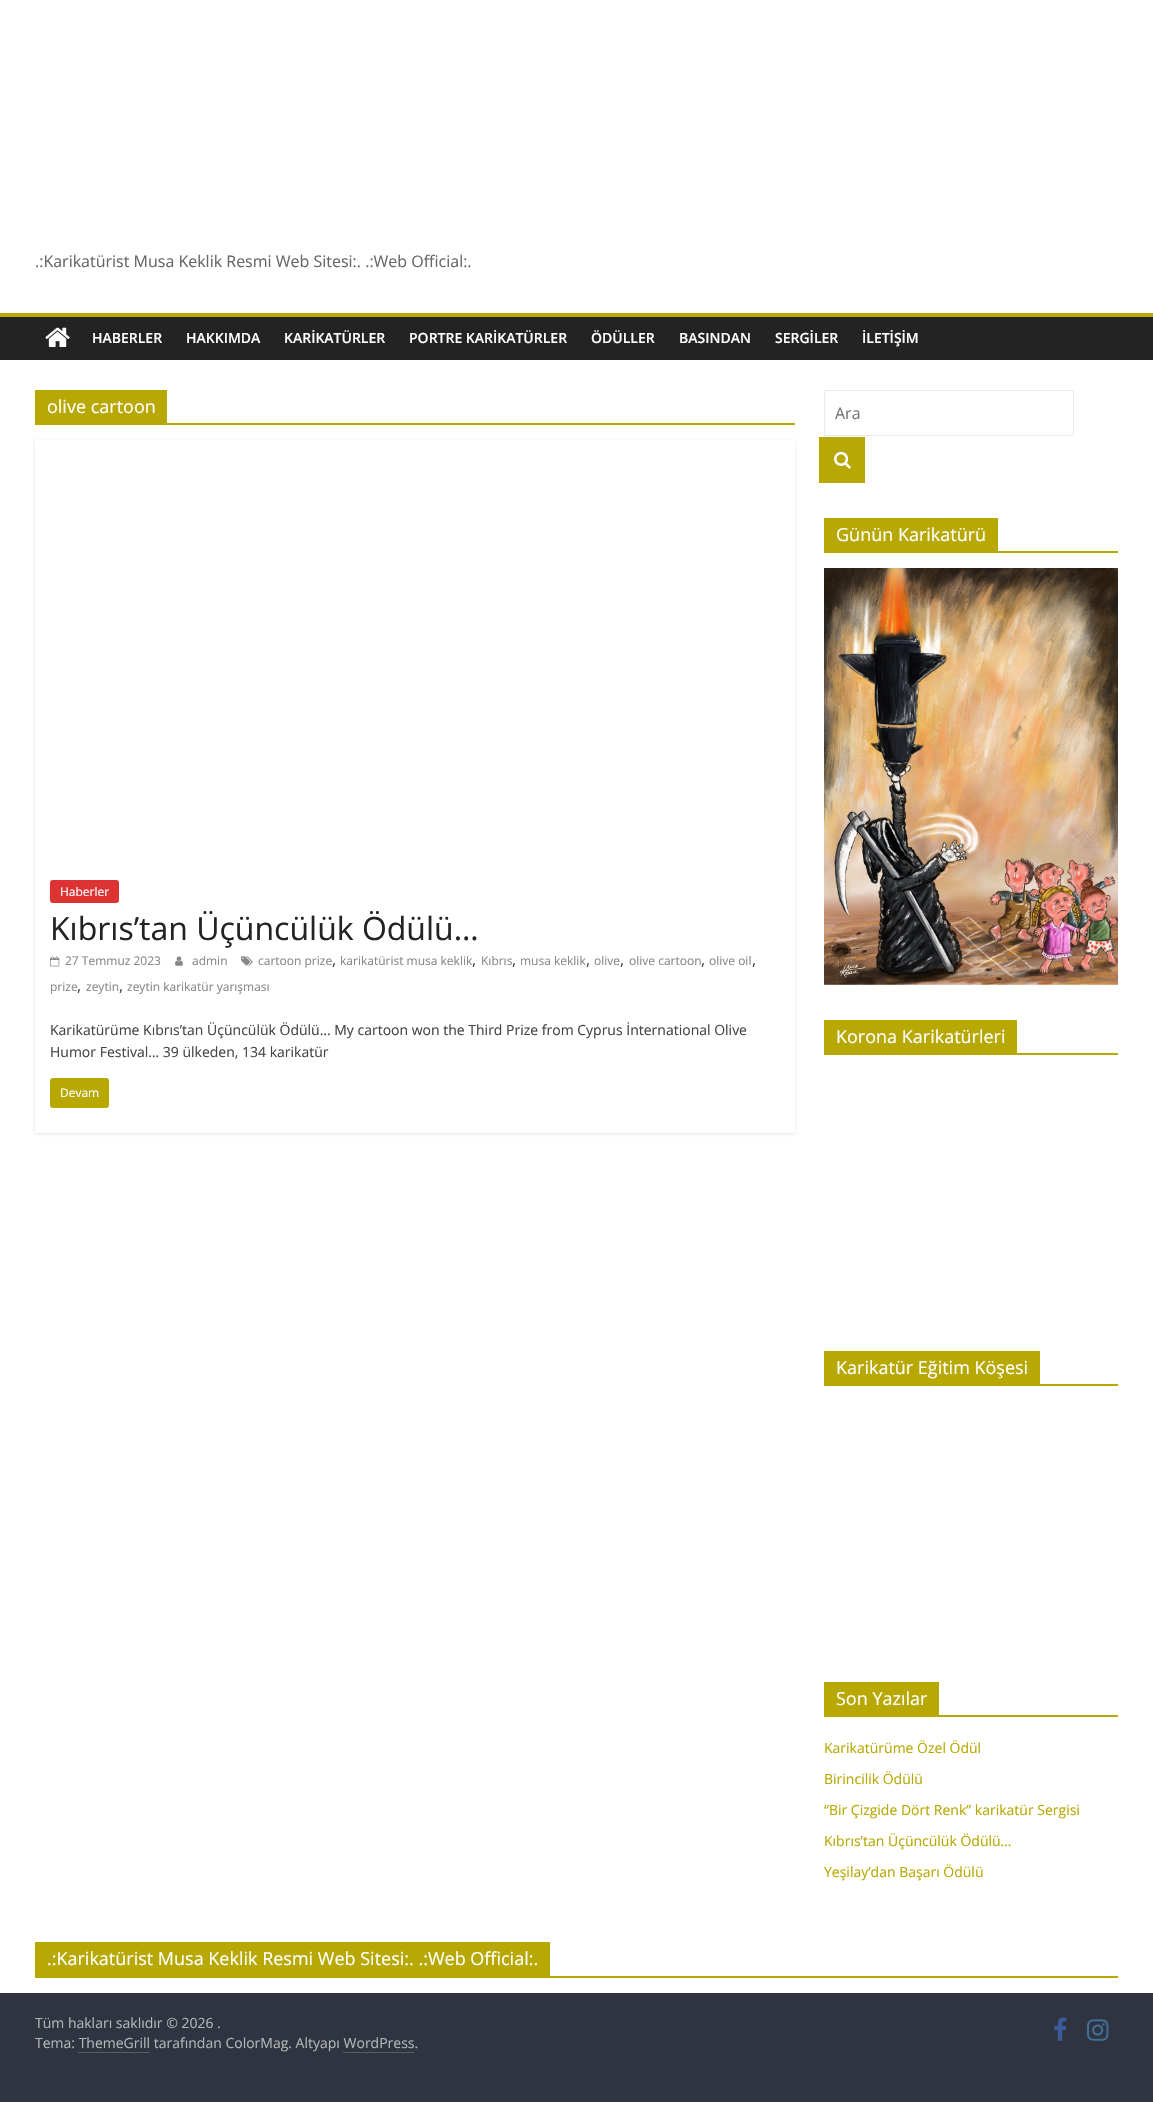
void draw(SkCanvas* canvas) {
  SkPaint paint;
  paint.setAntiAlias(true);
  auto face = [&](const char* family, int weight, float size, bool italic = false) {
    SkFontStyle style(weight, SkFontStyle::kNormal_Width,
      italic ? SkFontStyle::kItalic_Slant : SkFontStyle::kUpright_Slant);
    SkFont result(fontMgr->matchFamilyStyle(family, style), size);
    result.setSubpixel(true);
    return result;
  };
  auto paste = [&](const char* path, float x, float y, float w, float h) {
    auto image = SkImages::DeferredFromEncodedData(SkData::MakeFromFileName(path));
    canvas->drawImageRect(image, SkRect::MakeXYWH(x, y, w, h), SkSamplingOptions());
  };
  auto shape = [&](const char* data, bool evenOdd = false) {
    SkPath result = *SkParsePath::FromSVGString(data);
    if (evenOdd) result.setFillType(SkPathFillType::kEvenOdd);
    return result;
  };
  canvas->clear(0xffffffff);
  paint.setColor(0xff232323);
  canvas->drawRect(SkRect::MakeXYWH(0, 317, 1153, 43), paint);
  paint.setColor(0xffb7a803);
  canvas->drawRect(SkRect::MakeXYWH(0, 313, 1153, 4), paint);
  paste("img/1.png", 45, 327, 25, 20);
  canvas->drawRect(SkRect::MakeXYWH(35, 423, 760, 2), paint);
  canvas->drawRect(SkRect::MakeXYWH(35, 390, 132, 33), paint);
  canvas->save();
  canvas->clipPath(shape("M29 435H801V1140H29ZM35 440H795V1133H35Z", true), true);
  paint.setColor(0x1a000000);
  paint.setMaskFilter(SkMaskFilter::MakeBlur(kNormal_SkBlurStyle, 1.5f));
  canvas->drawRect(SkRect::MakeXYWH(35, 441, 760, 693), paint);
  paint.setMaskFilter(nullptr);
  canvas->restore();
  paint.setColor(0xffdd3333);
  canvas->drawRoundRect(SkRect::MakeXYWH(50, 880, 69, 23), 3, 3, paint);
  paste("img/2.png", 241, 956, 12, 10);
  paste("img/3.png", 50, 956, 10, 11);
  paste("img/4.png", 175, 956, 8, 10);
  paint.setColor(0xffb7a803);
  canvas->drawRoundRect(SkRect::MakeXYWH(50, 1078, 59, 30), 3, 3, paint);
  paint.setStroke(true);
  paint.setStrokeWidth(1);
  paint.setColor(0xffeaeaea);
  canvas->drawRect(SkRect::MakeXYWH(824.5f, 390.5f, 249, 45), paint);
  paint.setStroke(false);
  paint.setColor(0xffb7a803);
  canvas->drawRect(SkRect::MakeXYWH(819, 437, 46, 46), paint);
  paste("img/5.png", 834, 451, 17, 18);
  canvas->drawRect(SkRect::MakeXYWH(824, 551, 294, 2), paint);
  canvas->drawRect(SkRect::MakeXYWH(824, 518, 174, 33), paint);
  paste("img/6.png", 824, 568, 294, 417);
  {
    const struct { float x, y, w, h; SkColor color; } items[] = {
      {824, 1053, 294, 2, 0xffb7a803},
      {824, 1020, 193, 33, 0xffb7a803},
      {824, 1384, 294, 2, 0xffb7a803},
      {824, 1351, 216, 33, 0xffb7a803},
      {824, 1715, 294, 2, 0xffb7a803},
      {824, 1682, 115, 33, 0xffb7a803},
      {35, 1976, 1083, 2, 0xffb7a803},
      {35, 1942, 515, 34, 0xffb7a803},
      {0, 1993, 1153, 109, 0xff303440},
      {78, 2052, 72, 1, 0xff5a5d62},
      {343, 2052, 71, 1, 0xff5a5d62},
    };
    for (auto [x, y, w, h, color] : items) {
      paint.setColor(color);
      canvas->drawRect(SkRect::MakeXYWH(x, y, w, h), paint);
    }
  }
  paste("img/7.png", 1054, 2017, 13, 24);
  paste("img/8.png", 1087, 2019, 22, 22);
  auto f0 = face("Open Sans", 400, 16);
  paint.setColor(0xff666666);
  canvas->drawString(".:Karikatürist Musa Keklik Resmi Web Sitesi:. .:Web Official:.", 35, 267, f0, paint);
  auto f1 = face("Open Sans", 600, 14);
  paint.setColor(0xffffffff);
  {
    const struct { const char* s; float x, y; } items[] = {
      {"HABERLER", 92, 343},
      {"HAKKIMDA", 186, 343},
      {"KARİKATÜRLER", 284, 343},
      {"PORTRE KARİKATÜRLER", 409, 343},
      {"ÖDÜLLER", 591, 343},
      {"BASINDAN", 679, 343},
      {"SERGİLER", 775, 343},
      {"İLETİŞİM", 862, 343},
    };
    for (auto [s, x, y] : items) {
      canvas->drawString(s, x, y, f1, paint);
    }
  }
  auto f2 = face("Open Sans", 400, 18);
  canvas->drawString("olive cartoon", 47, 413, f2, paint);
  auto f3 = face("Open Sans", 400, 12);
  canvas->drawString("Haberler", 60, 896, f3, paint);
  auto f4 = face("Open Sans", 400, 32);
  paint.setColor(0xff232323);
  canvas->drawString("Kıbrıs’tan Üçüncülük Ödülü…", 50, 940, f4, paint);
  paint.setColor(0xff888888);
  canvas->drawString("cartoon prize", 258, 965, f3, paint);
  paint.setColor(0xff444444);
  canvas->drawString(",", 332, 965, f0, paint);
  paint.setColor(0xff888888);
  canvas->drawString("karikatürist musa keklik", 340, 965, f3, paint);
  paint.setColor(0xff444444);
  canvas->drawString(",", 472, 965, f0, paint);
  paint.setColor(0xff888888);
  canvas->drawString("Kıbrıs", 481, 965, f3, paint);
  paint.setColor(0xff444444);
  canvas->drawString(",", 512, 965, f0, paint);
  paint.setColor(0xff888888);
  canvas->drawString("musa keklik", 520, 965, f3, paint);
  paint.setColor(0xff444444);
  canvas->drawString(",", 586, 965, f0, paint);
  paint.setColor(0xff888888);
  canvas->drawString("olive", 594, 965, f3, paint);
  paint.setColor(0xff444444);
  canvas->drawString(",", 620, 965, f0, paint);
  paint.setColor(0xff888888);
  canvas->drawString("olive cartoon", 629, 965, f3, paint);
  paint.setColor(0xff444444);
  canvas->drawString(",", 701, 965, f0, paint);
  paint.setColor(0xff888888);
  canvas->drawString("olive oil", 709, 965, f3, paint);
  paint.setColor(0xff444444);
  canvas->drawString(",", 752, 965, f0, paint);
  paint.setColor(0xff888888);
  canvas->drawString("prize", 50, 991, f3, paint);
  paint.setColor(0xff444444);
  canvas->drawString(",", 77, 991, f0, paint);
  paint.setColor(0xff888888);
  canvas->drawString("zeytin", 86, 991, f3, paint);
  paint.setColor(0xff444444);
  canvas->drawString(",", 119, 991, f0, paint);
  paint.setColor(0xff888888);
  {
    const struct { const char* s; float x, y; } items[] = {
      {"zeytin karikatür yarışması", 127, 991},
      {"27 Temmuz 2023", 65, 965},
      {"admin", 192, 965},
    };
    for (auto [s, x, y] : items) {
      canvas->drawString(s, x, y, f3, paint);
    }
  }
  auto f5 = face("Open Sans", 400, 14);
  paint.setColor(0xff444444);
  canvas->drawString("Karikatürüme Kıbrıs’tan Üçüncülük Ödülü… My cartoon won the Third Prize from Cyprus İnternational Olive", 50, 1035, f5, paint);
  canvas->drawString("Humor Festival… 39 ülkeden, 134 karikatür", 50, 1057, f5, paint);
  paint.setColor(0xffffffff);
  canvas->drawString("Devam", 60, 1097, f3, paint);
  paint.setColor(0xff757575);
  canvas->drawString("Ara", 835, 419, f0, paint);
  paint.setColor(0xffffffff);
  {
    const struct { const char* s; float x, y; } items[] = {
      {"Günün Karikatürü", 836, 541},
      {"Korona Karikatürleri", 836, 1043},
      {"Karikatür Eğitim Köşesi", 836, 1374},
      {"Son Yazılar", 836, 1705},
    };
    for (auto [s, x, y] : items) {
      canvas->drawString(s, x, y, f2, paint);
    }
  }
  paint.setColor(0xffb7a803);
  {
    const struct { const char* s; float x, y; } items[] = {
      {"Karikatürüme Özel Ödül", 824, 1753},
      {"Birincilik Ödülü", 824, 1784},
      {"“Bir Çizgide Dört Renk” karikatür Sergisi", 824, 1815},
      {"Kıbrıs’tan Üçüncülük Ödülü…", 824, 1846},
      {"Yeşilay’dan Başarı Ödülü", 824, 1877},
    };
    for (auto [s, x, y] : items) {
      canvas->drawString(s, x, y, f5, paint);
    }
  }
  paint.setColor(0xffffffff);
  canvas->drawString(".:Karikatürist Musa Keklik Resmi Web Sitesi:. .:Web Official:.", 47, 1965, f2, paint);
  paint.setColor(0xffb1b6b6);
  canvas->drawString("Tüm hakları saklıdır © 2026 .", 35, 2028, f5, paint);
  canvas->drawString("Tema: ThemeGrill tarafından ColorMag. Altyapı WordPress.", 35, 2048, f5, paint);
}
